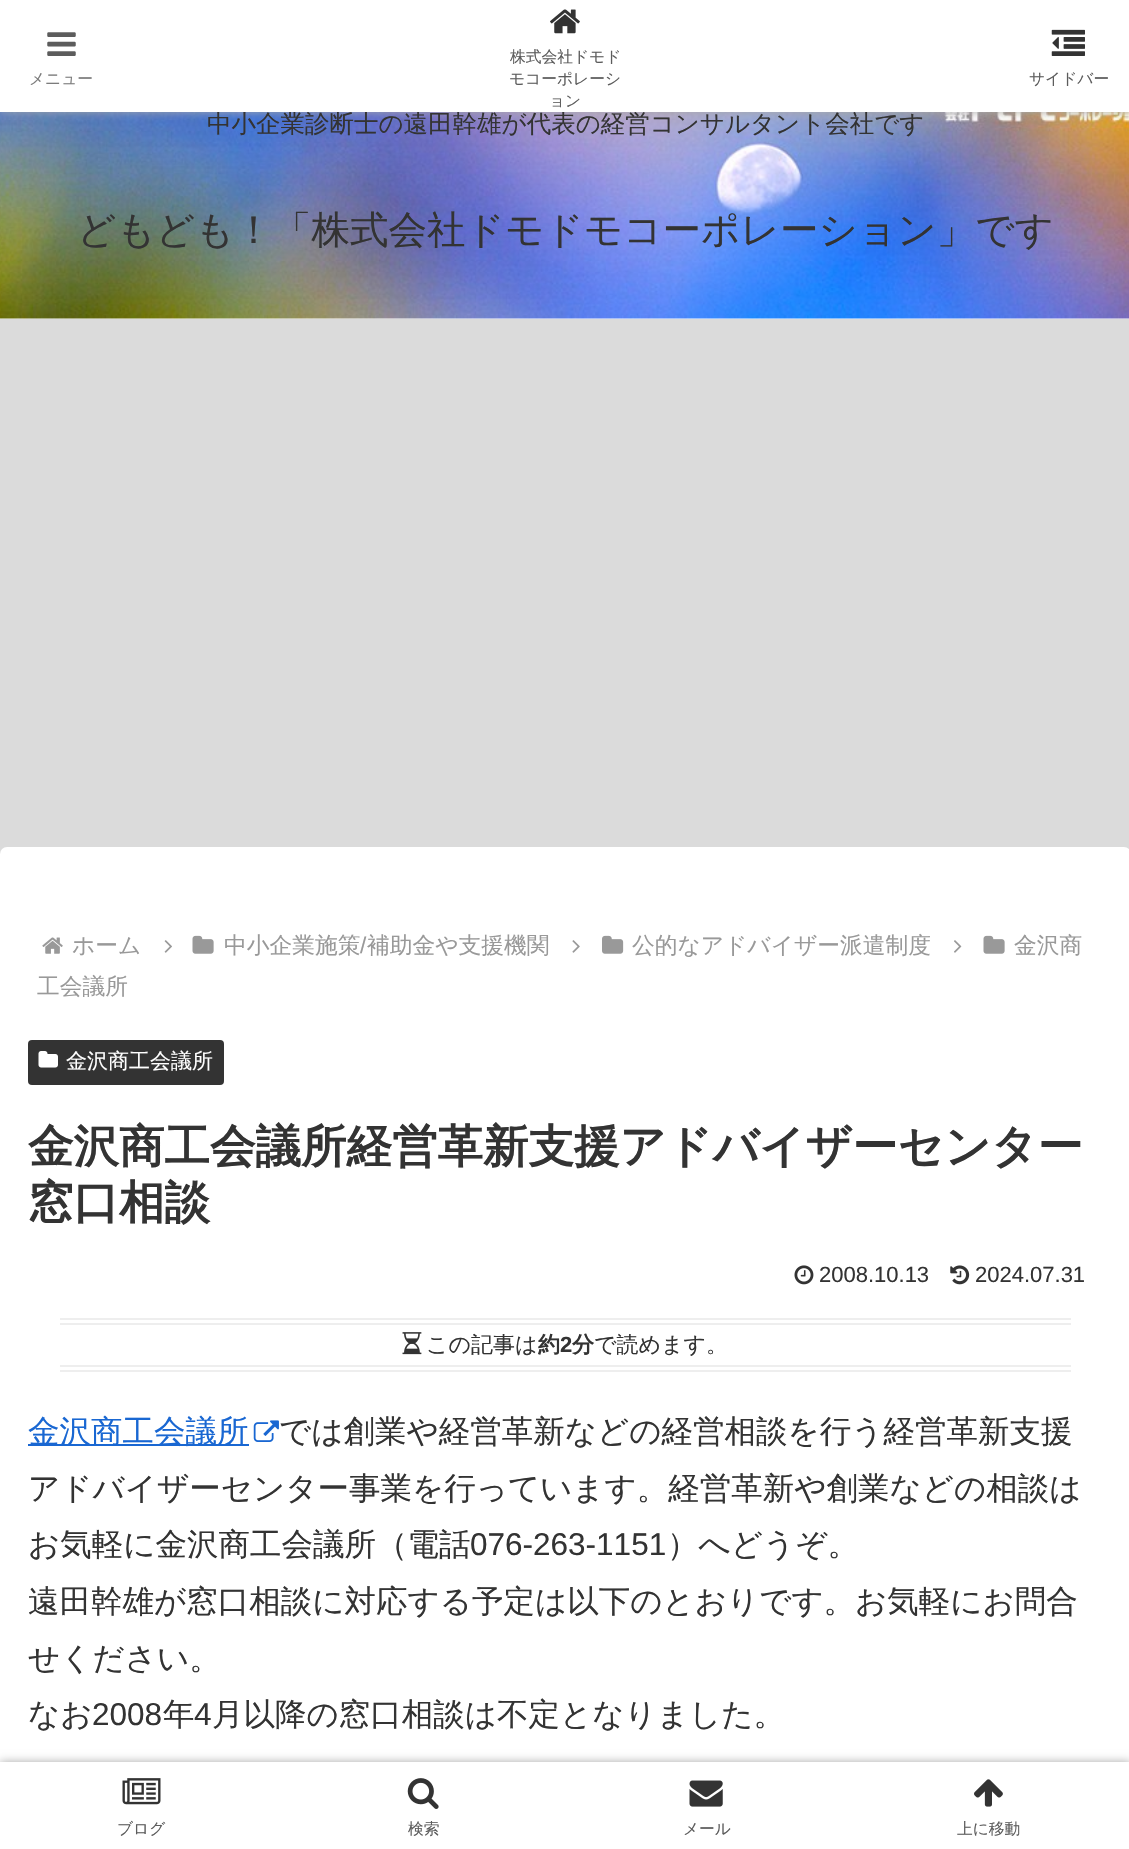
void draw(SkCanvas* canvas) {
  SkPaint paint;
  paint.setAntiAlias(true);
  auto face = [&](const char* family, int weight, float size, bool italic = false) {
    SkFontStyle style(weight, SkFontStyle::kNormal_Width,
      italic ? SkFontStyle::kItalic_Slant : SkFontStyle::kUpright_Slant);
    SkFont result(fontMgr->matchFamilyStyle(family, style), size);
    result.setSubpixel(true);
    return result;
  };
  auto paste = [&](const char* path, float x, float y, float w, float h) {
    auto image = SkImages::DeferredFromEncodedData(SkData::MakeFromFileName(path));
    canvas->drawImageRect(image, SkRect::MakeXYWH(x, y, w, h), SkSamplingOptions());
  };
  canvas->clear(0xffdbdbdb);
  paint.setColor(0xffffffff);
  canvas->drawRect(SkRect::MakeXYWH(0, 318, 1129, 1), paint);
  paste("img/4.png", 0, 112, 1129, 207);
  paint.setColor(0xffa9a9a9);
  paint.setMaskFilter(SkMaskFilter::MakeBlur(kNormal_SkBlurStyle, 4.5f));
  canvas->drawRect(SkRect::MakeXYWH(0, 0, 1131, 112), paint);
  paint.setMaskFilter(nullptr);
  paint.setColor(0xffffffff);
  canvas->drawRoundRect(SkRect::MakeXYWH(0, 847, 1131, 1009), 7, 7, paint);
  paste("img/5.png", 954, 940, 8, 13);
  paste("img/6.png", 983, 935, 22, 19);
  paste("img/7.png", 42, 937, 21, 17);
  paste("img/8.png", 164, 940, 8, 13);
  paste("img/9.png", 192, 935, 22, 19);
  paste("img/10.png", 572, 940, 8, 13);
  paste("img/11.png", 602, 935, 22, 19);
  paint.setColor(0xff333333);
  canvas->drawRoundRect(SkRect::MakeXYWH(28, 1040, 196, 45), 4, 4, paint);
  paste("img/12.png", 38, 1051, 20, 17);
  paste("img/13.png", 794, 1265, 20, 20);
  paste("img/14.png", 950, 1265, 20, 20);
  {
    const struct { float x, y, w, h; SkColor color; } items[] = {
      {60, 1318, 1011, 2, 0xffeeeeee},
      {60, 1323, 1011, 2, 0xffeeeeee},
      {60, 1365, 1011, 2, 0xffeeeeee},
      {60, 1370, 1011, 2, 0xffeeeeee},
    };
    for (auto [x, y, w, h, color] : items) {
      paint.setColor(color);
      canvas->drawRect(SkRect::MakeXYWH(x, y, w, h), paint);
    }
  }
  paste("img/15.png", 402, 1332, 20, 23);
  paint.setColor(0xff1967d2);
  canvas->drawRect(SkRect::MakeXYWH(28, 1444, 221, 2), paint);
  paste("img/16.png", 253, 1420, 26, 22);
  paint.setColor(0xffa9a9a9);
  paint.setMaskFilter(SkMaskFilter::MakeBlur(kNormal_SkBlurStyle, 4.5f));
  canvas->drawRect(SkRect::MakeXYWH(0, 1762, 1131, 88), paint);
  paint.setMaskFilter(nullptr);
  paint.setColor(0xffffffff);
  canvas->drawRect(SkRect::MakeXYWH(0, 1762, 1129, 87), paint);
  paste("img/17.png", 122, 1778, 39, 27);
  paste("img/18.png", 407, 1778, 32, 31);
  paste("img/19.png", 689, 1780, 34, 27);
  paste("img/20.png", 974, 1779, 29, 28);
  auto f0 = face("WenQuanYi Zen Hei", 500, 24.5f);
  paint.setColor(0xff333333);
  canvas->drawString("中小企業診断士の遠田幹雄が代表の経営コンサルタント会社です", 207, 132, f0, paint);
  paint.setColor(0xffffffff);
  canvas->drawRect(SkRect::MakeXYWH(0, 0, 1129, 112), paint);
  auto f1 = face("WenQuanYi Zen Hei", 500, 15.75f);
  paint.setColor(0xff5c5c5c);
  canvas->drawString("サイドバー", 1029, 84, f1, paint);
  paste("img/3.png", 1051, 29, 34, 27);
  {
    const struct { const char* s; float x, y; } items[] = {
      {"ョン", 549, 106},
      {"モコーポレーシ", 509, 84},
      {"株式会社ドモド", 510, 62},
    };
    for (auto [s, x, y] : items) {
      canvas->drawString(s, x, y, f1, paint);
    }
  }
  paste("img/2.png", 550, 9, 30, 25);
  paint.setColor(0xff7c7c7c);
  canvas->drawString("メニュー", 29, 84, f1, paint);
  paste("img/1.png", 47, 32, 29, 24);
  auto f2 = face("WenQuanYi Zen Hei", 500, 38.5f);
  paint.setColor(0xff333333);
  canvas->drawString("どもども！「株式会社ドモドモコーポレーション」です", 77, 243, f2, paint);
  auto f3 = face("WenQuanYi Zen Hei", 500, 22.75f);
  paint.setColor(0xff999999);
  {
    const struct { const char* s; float x, y; } items[] = {
      {"金沢商", 1014, 953},
      {"工会議所", 37, 994},
      {"ホーム", 72, 953},
      {"中小企業施策", 224, 953},
    };
    for (auto [s, x, y] : items) {
      canvas->drawString(s, x, y, f3, paint);
    }
  }
  auto f4 = face("Liberation Sans", 400, 22.75f);
  canvas->drawString("/", 360, 953, f4, paint);
  canvas->drawString("補助金や支援機関", 367, 953, f3, paint);
  canvas->drawString("公的なアドバイザー派遣制度", 632, 953, f3, paint);
  auto f5 = face("WenQuanYi Zen Hei", 500, 21);
  paint.setColor(0xffffffff);
  canvas->drawString("金沢商工会議所", 66, 1068, f5, paint);
  auto f6 = face("WenQuanYi Zen Hei", 700, 45.5f);
  paint.setColor(0xff333333);
  canvas->drawString("金沢商工会議所経営革新支援アドバイザーセンター", 28, 1162, f6, paint);
  canvas->drawString("窓口相談", 28, 1218, f6, paint);
  auto f7 = face("Liberation Sans", 400, 22);
  canvas->drawString("2008.10.13", 819, 1282, f7, paint);
  canvas->drawString("2024.07.31", 975, 1282, f7, paint);
  auto f8 = face("WenQuanYi Zen Hei", 500, 22);
  canvas->drawString("この記事は", 426, 1352, f8, paint);
  auto f9 = face("WenQuanYi Zen Hei", 700, 22);
  canvas->drawString("約", 538, 1352, f9, paint);
  auto f10 = face("Liberation Sans", 700, 22);
  canvas->drawString("2", 560, 1352, f10, paint);
  canvas->drawString("分", 572, 1352, f9, paint);
  canvas->drawString("で読めます。", 594, 1352, f8, paint);
  auto f11 = face("WenQuanYi Zen Hei", 500, 31.5f);
  paint.setColor(0xff1967d2);
  canvas->drawString("金沢商工会議所", 28, 1442, f11, paint);
  paint.setColor(0xff333333);
  {
    const struct { const char* s; float x, y; } items[] = {
      {"では創業や経営革新などの経営相談を行う経営革新支援", 279, 1442},
      {"アドバイザーセンター事業を行っています。経営革新や創業などの相談は", 28, 1499},
      {"お気軽に金沢商工会議所（電話", 28, 1555},
    };
    for (auto [s, x, y] : items) {
      canvas->drawString(s, x, y, f11, paint);
    }
  }
  auto f12 = face("Liberation Sans", 400, 31.5f);
  canvas->drawString("076-263-1151", 470, 1555, f12, paint);
  {
    const struct { const char* s; float x, y; } items[] = {
      {"）へどうぞ。", 667, 1555},
      {"遠田幹雄が窓口相談に対応する予定は以下のとおりです。お気軽にお問合", 28, 1612},
      {"せください。", 28, 1669},
      {"なお", 28, 1725},
    };
    for (auto [s, x, y] : items) {
      canvas->drawString(s, x, y, f11, paint);
    }
  }
  canvas->drawString("2008", 92, 1725, f12, paint);
  canvas->drawString("年", 163, 1725, f11, paint);
  canvas->drawString("4", 194, 1725, f12, paint);
  canvas->drawString("月以降の窓口相談は不定となりました。", 212, 1725, f11, paint);
  paint.setColor(0xff5c5c5c);
  {
    const struct { const char* s; float x, y; } items[] = {
      {"ブログ", 117, 1834},
      {"検索", 408, 1834},
      {"メール", 683, 1834},
      {"上に移動", 957, 1834},
    };
    for (auto [s, x, y] : items) {
      canvas->drawString(s, x, y, f1, paint);
    }
  }
}
